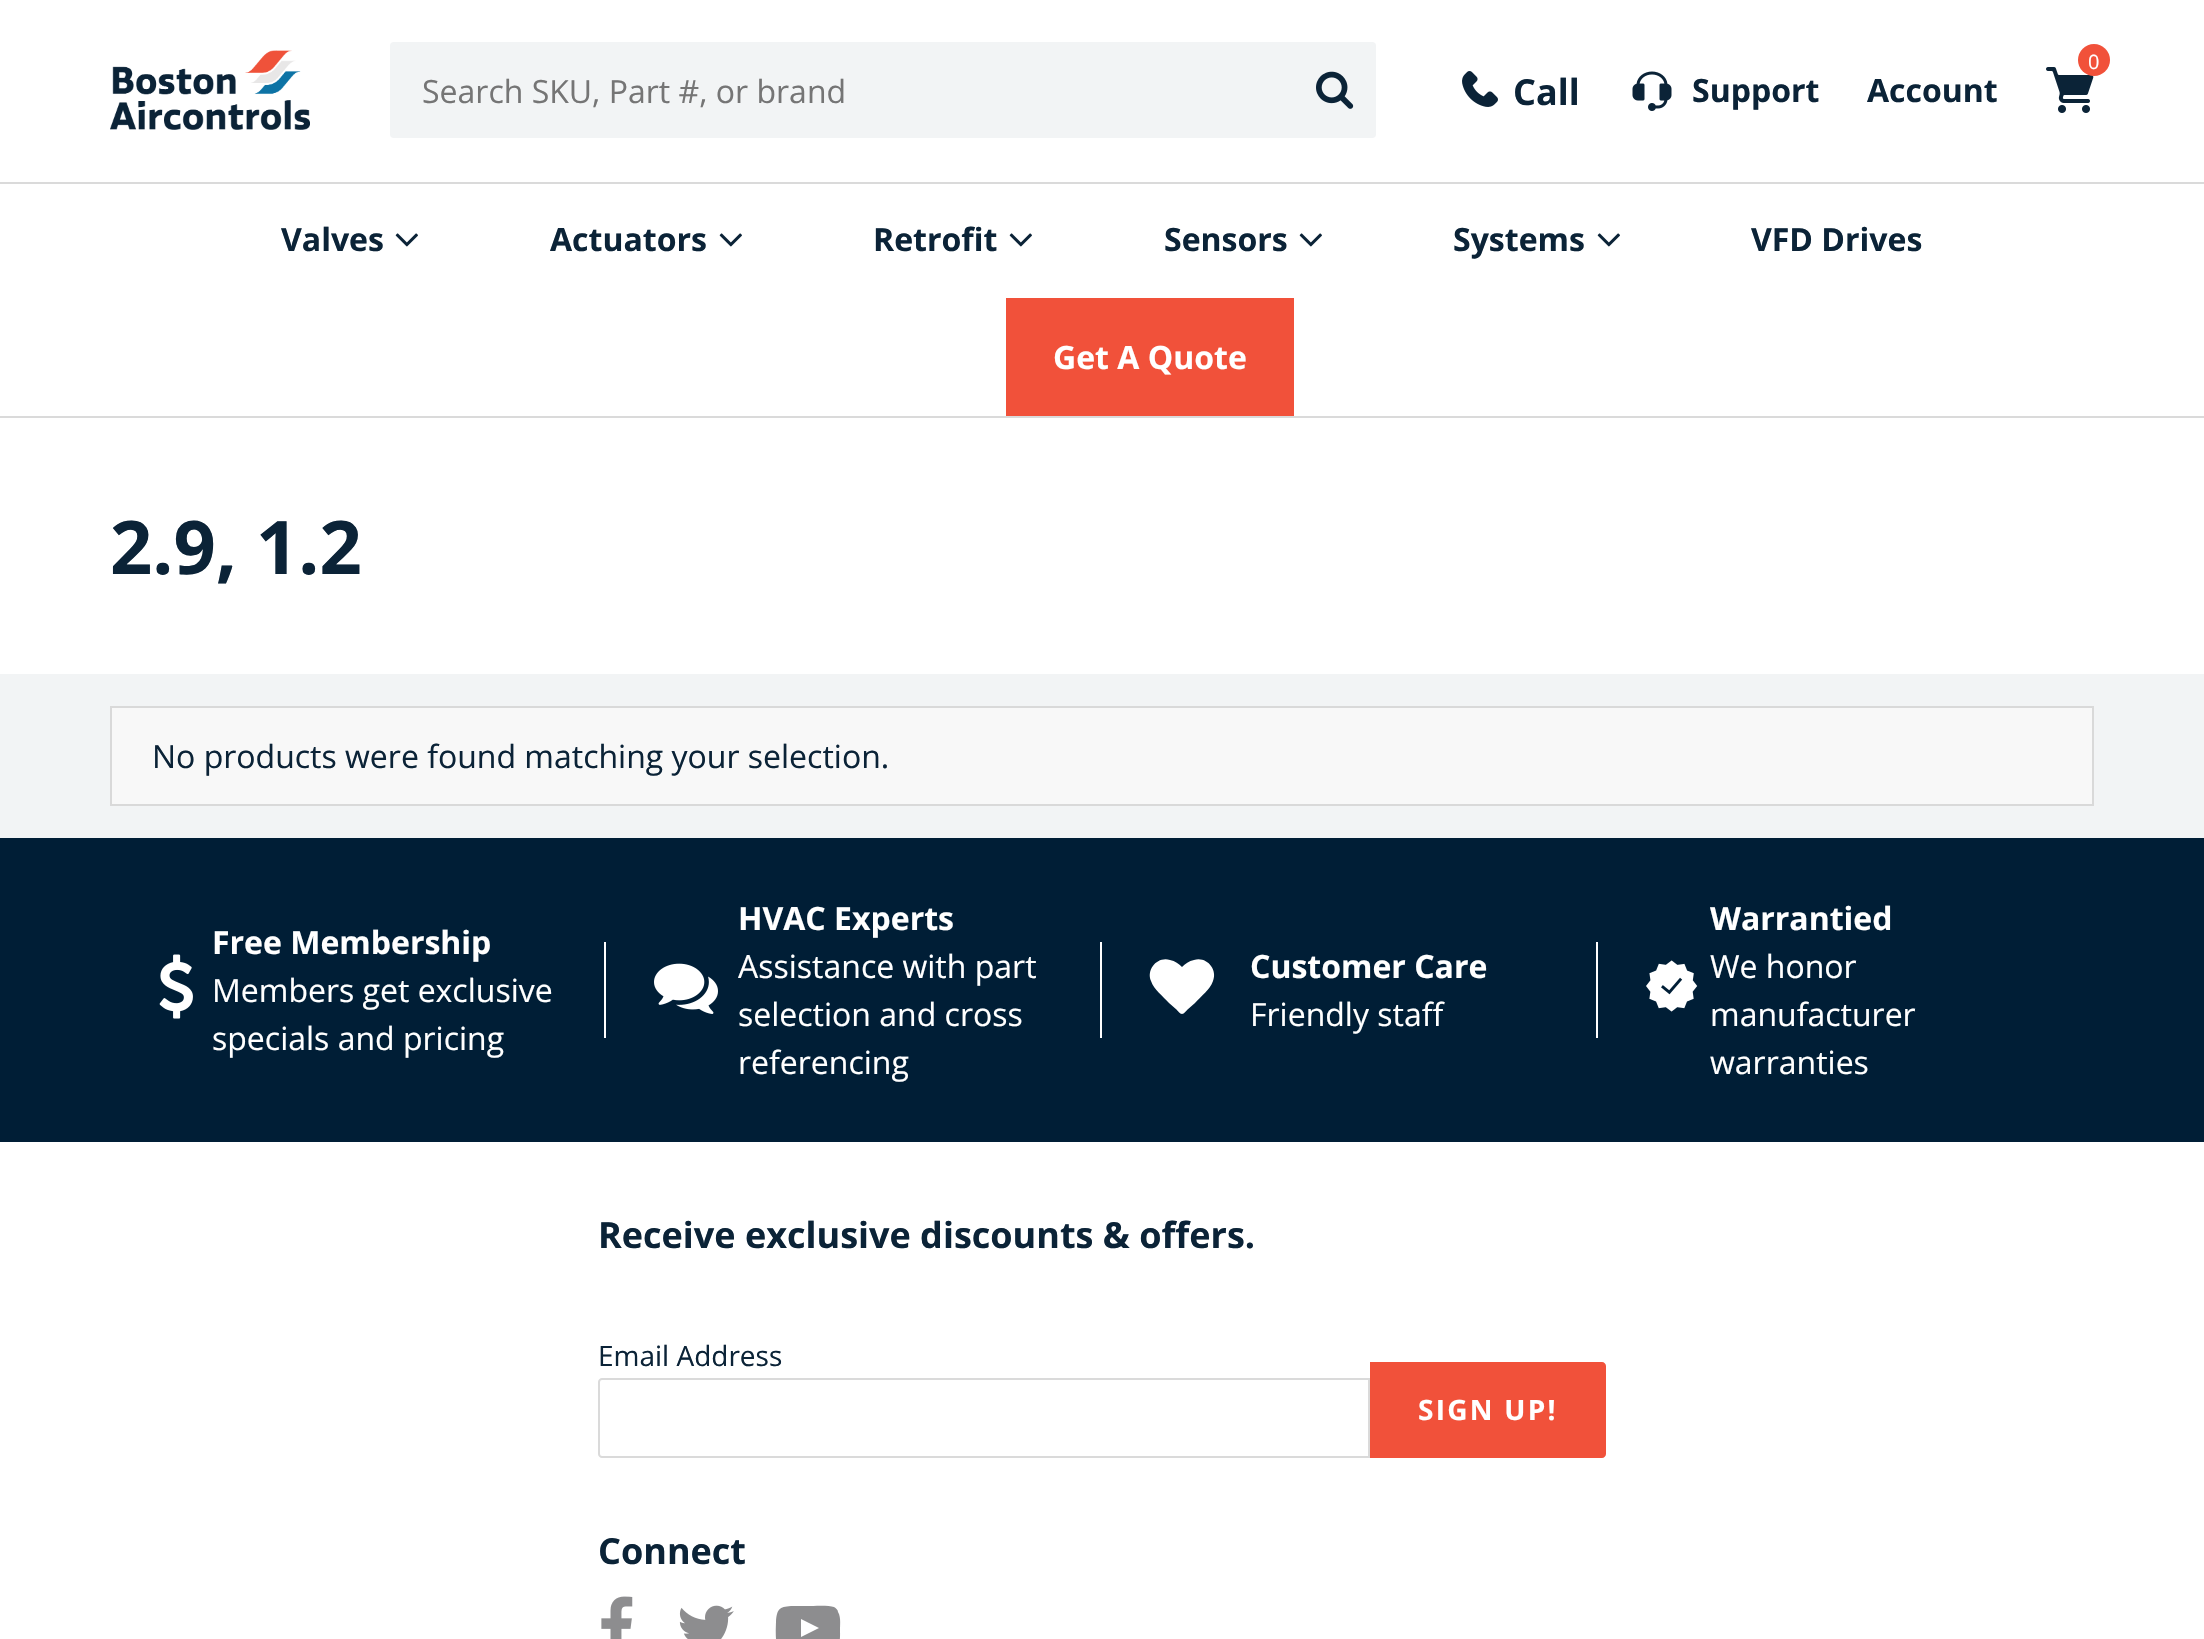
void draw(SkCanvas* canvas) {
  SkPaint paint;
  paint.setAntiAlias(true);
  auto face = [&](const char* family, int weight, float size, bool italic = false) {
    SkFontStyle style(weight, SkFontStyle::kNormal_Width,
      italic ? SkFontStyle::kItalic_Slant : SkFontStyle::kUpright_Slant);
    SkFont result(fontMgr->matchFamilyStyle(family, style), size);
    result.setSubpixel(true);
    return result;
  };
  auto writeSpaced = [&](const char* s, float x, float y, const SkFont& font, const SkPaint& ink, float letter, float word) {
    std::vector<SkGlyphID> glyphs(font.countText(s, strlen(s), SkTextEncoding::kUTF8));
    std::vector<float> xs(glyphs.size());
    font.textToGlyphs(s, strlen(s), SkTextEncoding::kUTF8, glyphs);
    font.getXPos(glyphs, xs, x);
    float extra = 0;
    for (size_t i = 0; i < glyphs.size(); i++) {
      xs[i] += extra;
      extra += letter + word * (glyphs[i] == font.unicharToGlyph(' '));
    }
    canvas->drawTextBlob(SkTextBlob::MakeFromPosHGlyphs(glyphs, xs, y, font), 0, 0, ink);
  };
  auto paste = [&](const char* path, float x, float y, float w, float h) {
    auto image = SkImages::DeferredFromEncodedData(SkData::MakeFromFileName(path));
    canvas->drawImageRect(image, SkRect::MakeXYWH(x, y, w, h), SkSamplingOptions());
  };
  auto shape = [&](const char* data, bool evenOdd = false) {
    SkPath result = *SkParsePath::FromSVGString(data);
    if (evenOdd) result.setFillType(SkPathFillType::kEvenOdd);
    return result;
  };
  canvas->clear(0xffffffff);
  paint.setColor(0xffdadada);
  canvas->drawRect(SkRect::MakeXYWH(0, 416, 2204, 2), paint);
  paste("img/1.png", 110, 50, 200, 80);
  paste("img/2.png", 2046, 67, 48, 46);
  paint.setColor(0xfff1513a);
  canvas->drawCircle(2094, 60, 16, paint);
  paste("img/3.png", 1462, 71, 36, 36);
  paste("img/4.png", 1632, 71, 40, 40);
  paint.setColor(0xffdadada);
  canvas->drawRect(SkRect::MakeXYWH(0, 182, 2204, 2), paint);
  paste("img/5.png", 395, 233, 23, 14);
  paste("img/5.png", 719, 233, 23, 14);
  paste("img/5.png", 1009, 233, 23, 14);
  paste("img/5.png", 1299, 233, 23, 14);
  paste("img/5.png", 1597, 233, 23, 14);
  paint.setColor(0xfff1513a);
  canvas->drawRect(SkRect::MakeXYWH(1006, 298, 288, 118), paint);
  paint.setColor(0xfff2f4f5);
  canvas->drawRoundRect(SkRect::MakeXYWH(390, 42, 986, 96), 4, 4, paint);
  paste("img/6.png", 1316, 71, 38, 38);
  canvas->drawRect(SkRect::MakeXYWH(0, 674, 2204, 164), paint);
  paint.setColor(0xfff8f8f8);
  canvas->drawRect(SkRect::MakeXYWH(111, 707, 1982, 98), paint);
  paint.setStroke(true);
  paint.setStrokeWidth(2);
  paint.setColor(0xffd9d9d9);
  canvas->drawRect(SkRect::MakeXYWH(111, 707, 1982, 98), paint);
  paint.setStroke(false);
  paint.setColor(0xff001e36);
  canvas->drawRect(SkRect::MakeXYWH(0, 838, 2204, 304), paint);
  paste("img/7.png", 159, 954, 34, 65);
  paint.setColor(0xffffffff);
  canvas->drawRect(SkRect::MakeXYWH(604, 942, 2, 96), paint);
  paste("img/8.png", 654, 963, 64, 51);
  canvas->drawRect(SkRect::MakeXYWH(1100, 942, 2, 96), paint);
  canvas->drawPath(shape("M1182 1014C1180 1014 1177 1010 1177 1010L1169 1003C1163 996 1154 990 1151 981C1146 969 1158 956 1170 960C1175 961 1179 964 1182 967C1185 964 1189 961 1194 960C1206 956 1218 969 1213 981C1210 990 1201 996 1195 1003L1187 1010C1187 1010 1184 1014 1182 1014Z"), paint);
  canvas->drawRect(SkRect::MakeXYWH(1596, 942, 2, 96), paint);
  paste("img/9.png", 1646, 960, 52, 52);
  paint.setStroke(true);
  paint.setColor(0xffdadada);
  canvas->drawPath(shape("M602 1379H1369V1457H602C600.5 1457 599 1455.5 599 1454V1382C599 1380.5 600.5 1379 602 1379Z"), paint);
  paint.setStroke(false);
  paint.setColor(0xfff1513a);
  canvas->drawPath(shape("M1370 1362H1602C1604 1362 1606 1364 1606 1366V1454C1606 1456 1604 1458 1602 1458H1370Z"), paint);
  paste("img/10.png", 601, 1596, 32, 43);
  paste("img/11.png", 679, 1605, 55, 34);
  paint.setColor(0xff8d8d8f);
  canvas->drawPath(shape("M801 1637L819 1628L801 1619ZM808 1606C813 1606 829 1605 834 1607C836 1608 838 1610 838 1612C841 1617 840 1624 840 1629C840 1636 841 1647 834 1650L825 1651H805C776 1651 775 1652 776 1622C777 1609 779 1607 791 1606Z"), paint);
  auto f0 = face("Open Sans", 400, 20);
  paint.setColor(0xffffffff);
  canvas->drawString("0", 2088, 69, f0, paint);
  auto f1 = face("Open Sans", 700, 36);
  paint.setColor(0xff0b2337);
  canvas->drawString("Call", 1513, 105, f1, paint);
  auto f2 = face("Open Sans", 700, 32);
  {
    const struct { const char* s; float x, y; } items[] = {
      {"Support", 1692, 102},
      {"Account", 1867, 102},
      {"Valves", 281, 251},
      {"Actuators", 550, 251},
      {"Retrofit", 873, 251},
      {"Sensors", 1164, 251},
      {"Systems", 1453, 251},
      {"VFD Drives", 1751, 251},
    };
    for (auto [s, x, y] : items) {
      canvas->drawString(s, x, y, f2, paint);
    }
  }
  paint.setColor(0xffffffff);
  canvas->drawString("Get A Quote", 1053, 369, f2, paint);
  auto f3 = face("Open Sans", 400, 32);
  paint.setColor(0xff757575);
  canvas->drawString("Search SKU, Part #, or brand", 422, 103, f3, paint);
  auto f4 = face("Open Sans", 700, 74);
  paint.setColor(0xff0b2337);
  canvas->drawString("2.9, 1.2", 110, 574, f4, paint);
  canvas->drawString("No products were found matching your selection.", 152, 768, f3, paint);
  paint.setColor(0xffffffff);
  canvas->drawString("Free Membership", 212, 954, f2, paint);
  canvas->drawString("Members get exclusive", 212, 1002, f3, paint);
  canvas->drawString("specials and pricing", 212, 1050, f3, paint);
  canvas->drawString("HVAC Experts", 738, 930, f2, paint);
  {
    const struct { const char* s; float x, y; } items[] = {
      {"Assistance with part", 738, 978},
      {"selection and cross", 738, 1026},
      {"referencing", 738, 1074},
    };
    for (auto [s, x, y] : items) {
      canvas->drawString(s, x, y, f3, paint);
    }
  }
  canvas->drawString("Customer Care", 1250, 978, f2, paint);
  canvas->drawString("Friendly staff", 1250, 1026, f3, paint);
  canvas->drawString("Warrantied", 1710, 930, f2, paint);
  {
    const struct { const char* s; float x, y; } items[] = {
      {"We honor", 1710, 978},
      {"manufacturer", 1710, 1026},
      {"warranties", 1710, 1074},
    };
    for (auto [s, x, y] : items) {
      canvas->drawString(s, x, y, f3, paint);
    }
  }
  paint.setColor(0xff0b2337);
  canvas->drawString("Receive exclusive discounts & offers.", 598, 1248, f1, paint);
  auto f5 = face("Open Sans", 400, 28);
  canvas->drawString("Email Address", 598, 1366, f5, paint);
  auto f6 = face("Open Sans", 700, 28);
  paint.setColor(0xffffffff);
  writeSpaced("SIGN UP!", 1418, 1420, f6, paint, 2.25f, 0);
  paint.setColor(0xff0b2337);
  canvas->drawString("Connect", 598, 1564, f1, paint);
}
